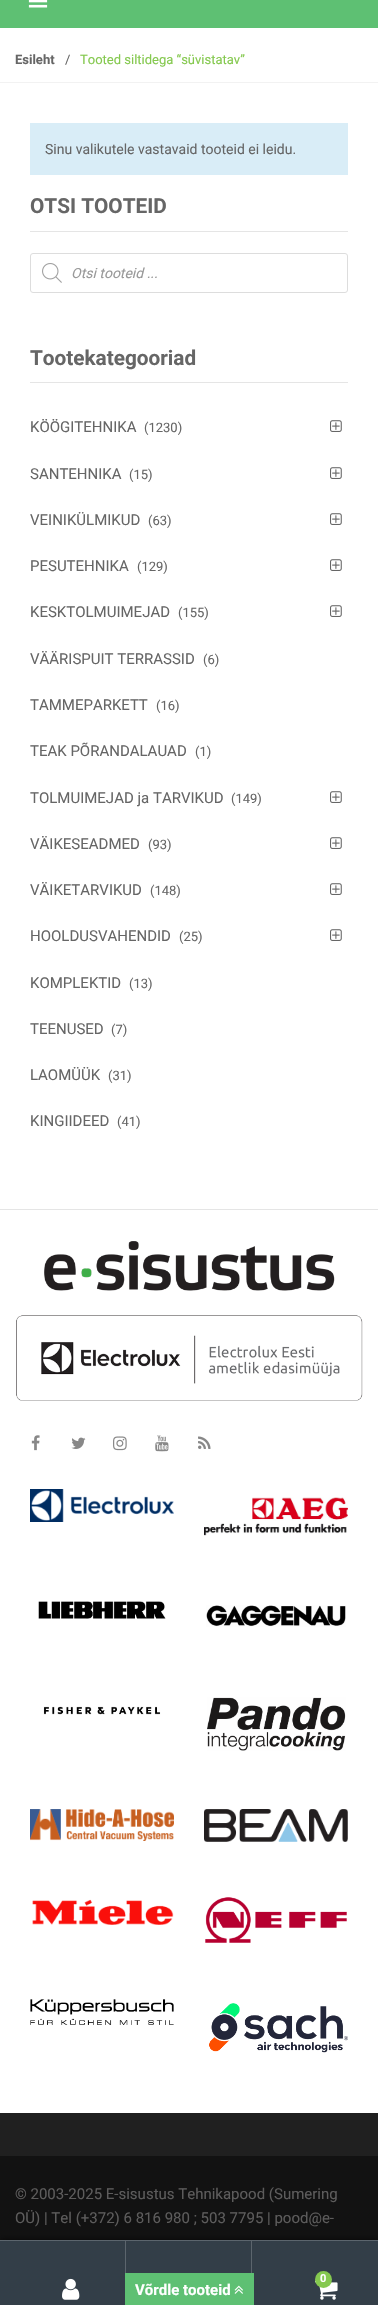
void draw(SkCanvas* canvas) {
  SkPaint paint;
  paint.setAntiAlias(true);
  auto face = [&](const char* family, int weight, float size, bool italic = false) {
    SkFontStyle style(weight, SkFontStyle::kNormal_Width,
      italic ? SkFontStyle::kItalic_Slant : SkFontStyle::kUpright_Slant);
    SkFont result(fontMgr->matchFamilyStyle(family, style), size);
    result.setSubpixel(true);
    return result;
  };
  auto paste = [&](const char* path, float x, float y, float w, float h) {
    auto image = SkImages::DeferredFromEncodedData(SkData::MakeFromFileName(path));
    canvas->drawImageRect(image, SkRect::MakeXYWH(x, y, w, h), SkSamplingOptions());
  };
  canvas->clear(0xffffffff);
  paint.setColor(0xff5ec073);
  canvas->drawRect(SkRect::MakeXYWH(0, 0, 378, 28), paint);
  paste("img/1.png", 28, 0, 20, 8);
  {
    const struct { float x, y, w, h; SkColor color; } items[] = {
      {0, 82, 378, 1, 0xfff2f2f2},
      {30, 123, 318, 52, 0xffd9edf7},
      {30, 231, 318, 1, 0xffe5e5e5},
    };
    for (auto [x, y, w, h, color] : items) {
      paint.setColor(color);
      canvas->drawRect(SkRect::MakeXYWH(x, y, w, h), paint);
    }
  }
  paint.setStroke(true);
  paint.setStrokeWidth(1);
  paint.setColor(0xffdddddd);
  canvas->drawRoundRect(SkRect::MakeXYWH(30.5f, 253.5f, 317, 39), 2.5f, 2.5f, paint);
  paste("img/2.png", 42, 263, 20, 20);
  paint.setStroke(false);
  paint.setColor(0xffe5e5e5);
  canvas->drawRect(SkRect::MakeXYWH(30, 382, 318, 1), paint);
  paste("img/3.png", 330, 420, 12, 12);
  paste("img/3.png", 330, 467, 12, 12);
  paste("img/3.png", 330, 513, 12, 12);
  paste("img/3.png", 330, 559, 12, 12);
  paste("img/3.png", 330, 605, 12, 12);
  paste("img/3.png", 330, 791, 12, 12);
  paste("img/3.png", 330, 837, 12, 12);
  paste("img/3.png", 330, 883, 12, 12);
  paste("img/3.png", 330, 929, 12, 12);
  canvas->drawRect(SkRect::MakeXYWH(0, 1209, 378, 1), paint);
  paste("img/4.png", 16, 1241, 347, 160);
  paste("img/5.png", 31, 1435, 9, 16);
  paste("img/6.png", 71, 1437, 15, 12);
  paste("img/7.png", 113, 1436, 14, 15);
  paste("img/8.png", 155, 1435, 14, 17);
  paste("img/9.png", 198, 1436, 13, 13);
  paste("img/10.png", 30, 1489, 144, 33);
  paste("img/11.png", 204, 1497, 144, 39);
  paste("img/12.png", 38, 1601, 128, 18);
  paste("img/13.png", 206, 1605, 140, 22);
  paste("img/14.png", 43, 1706, 118, 9);
  paste("img/15.png", 207, 1697, 139, 54);
  paste("img/16.png", 30, 1809, 144, 32);
  paste("img/17.png", 204, 1809, 144, 33);
  paste("img/18.png", 32, 1899, 142, 26);
  paste("img/19.png", 205, 1897, 142, 46);
  paste("img/20.png", 30, 1999, 144, 26);
  paste("img/21.png", 209, 2003, 139, 50);
  paint.setColor(0xff202020);
  canvas->drawRect(SkRect::MakeXYWH(0, 2113, 378, 43), paint);
  paint.setColor(0xff121212);
  canvas->drawRect(SkRect::MakeXYWH(0, 2156, 378, 84), paint);
  paint.setColor(0xb3000000);
  paint.setMaskFilter(SkMaskFilter::MakeBlur(kNormal_SkBlurStyle, 3));
  canvas->drawRect(SkRect::MakeXYWH(0, 2240, 378, 65), paint);
  paint.setMaskFilter(nullptr);
  {
    const struct { float x, y, w, h; SkColor color; } items[] = {
      {0, 2240, 378, 1, 0xff5c656d},
      {0, 2241, 125, 64, 0xff333e48},
      {125, 2241, 1, 32, 0xff5c656d},
    };
    for (auto [x, y, w, h, color] : items) {
      paint.setColor(color);
      canvas->drawRect(SkRect::MakeXYWH(x, y, w, h), paint);
    }
  }
  paste("img/22.png", 62, 2278, 18, 22);
  {
    const struct { float x, y, w, h; SkColor color; } items[] = {
      {126, 2241, 125, 32, 0xff333e48},
      {251, 2241, 1, 32, 0xff5c656d},
      {252, 2241, 126, 64, 0xff333e48},
    };
    for (auto [x, y, w, h, color] : items) {
      paint.setColor(color);
      canvas->drawRect(SkRect::MakeXYWH(x, y, w, h), paint);
    }
  }
  paste("img/23.png", 315, 2280, 23, 20);
  paint.setColor(0xff85c94f);
  canvas->drawCircle(323.5f, 2279.5f, 8.5f, paint);
  paint.setColor(0xff5ec073);
  canvas->drawRect(SkRect::MakeXYWH(125, 2273, 129, 32), paint);
  paste("img/24.png", 234, 2285, 9, 9);
  auto f0 = face("Roboto", 700, 13);
  paint.setColor(0xff666666);
  canvas->drawString("Esileht", 15, 64, f0, paint);
  auto f1 = face("Roboto", 400, 13);
  canvas->drawString("/", 65, 64, f1, paint);
  paint.setColor(0xff85c94f);
  canvas->drawString("Tooted siltidega “süvistatav”", 80, 64, f1, paint);
  auto f2 = face("Roboto", 400, 14);
  paint.setColor(0xff666666);
  canvas->drawString("Sinu valikutele vastavaid tooteid ei leidu.", 45, 154, f2, paint);
  auto f3 = face("Roboto", 700, 20.75f);
  canvas->drawString("OTSI TOOTEID", 30, 213, f3, paint);
  auto f4 = face("Roboto", 400, 14, true);
  paint.setColor(0xff999999);
  canvas->drawString("Otsi tooteid ...", 71, 278, f4, paint);
  paint.setColor(0xff666666);
  canvas->drawString("Tootekategooriad", 30, 365, f3, paint);
  auto f5 = face("Roboto", 400, 15);
  canvas->drawString("KÖÖGITEHNIKA", 30, 432, f5, paint);
  canvas->drawString("(1230)", 144, 432, f1, paint);
  canvas->drawString("SANTEHNIKA", 30, 479, f5, paint);
  canvas->drawString("(15)", 129, 479, f1, paint);
  canvas->drawString("VEINIKÜLMIKUD", 30, 525, f5, paint);
  canvas->drawString("(63)", 148, 525, f1, paint);
  canvas->drawString("PESUTEHNIKA", 30, 571, f5, paint);
  canvas->drawString("(129)", 137, 571, f1, paint);
  canvas->drawString("KESKTOLMUIMEJAD", 30, 617, f5, paint);
  canvas->drawString("(155)", 178, 617, f1, paint);
  canvas->drawString("VÄÄRISPUIT TERRASSID", 30, 664, f5, paint);
  canvas->drawString("(6)", 203, 664, f1, paint);
  canvas->drawString("TAMMEPARKETT", 30, 710, f5, paint);
  canvas->drawString("(16)", 156, 710, f1, paint);
  canvas->drawString("TEAK PÕRANDALAUAD", 30, 756, f5, paint);
  canvas->drawString("(1)", 195, 756, f1, paint);
  canvas->drawString("TOLMUIMEJAD ja TARVIKUD", 30, 803, f5, paint);
  canvas->drawString("(149)", 231, 803, f1, paint);
  canvas->drawString("VÄIKESEADMED", 30, 849, f5, paint);
  canvas->drawString("(93)", 148, 849, f1, paint);
  canvas->drawString("VÄIKETARVIKUD", 30, 895, f5, paint);
  canvas->drawString("(148)", 150, 895, f1, paint);
  canvas->drawString("HOOLDUSVAHENDID", 30, 941, f5, paint);
  canvas->drawString("(25)", 179, 941, f1, paint);
  canvas->drawString("KOMPLEKTID", 30, 988, f5, paint);
  canvas->drawString("(13)", 129, 988, f1, paint);
  canvas->drawString("TEENUSED", 30, 1034, f5, paint);
  canvas->drawString("(7)", 111, 1034, f1, paint);
  canvas->drawString("LAOMÜÜK", 30, 1080, f5, paint);
  canvas->drawString("(31)", 108, 1080, f1, paint);
  canvas->drawString("KINGIIDEED", 30, 1126, f5, paint);
  canvas->drawString("(41)", 117, 1126, f1, paint);
  paint.setColor(0xff5d5c5c);
  canvas->drawString("© 2003-2025 E-sisustus Tehnikapood (Sumering", 15, 2199, f5, paint);
  canvas->drawString("OÜ) | Tel (+372) 6 816 980 ; 503 7795 | pood@e-", 15, 2223, f5, paint);
  auto f6 = face("Roboto", 700, 11);
  paint.setColor(0xffffffff);
  canvas->drawString("0", 320, 2282, f6, paint);
  auto f7 = face("Roboto", 700, 15);
  canvas->drawString("Võrdle tooteid", 135, 2295, f7, paint);
}
